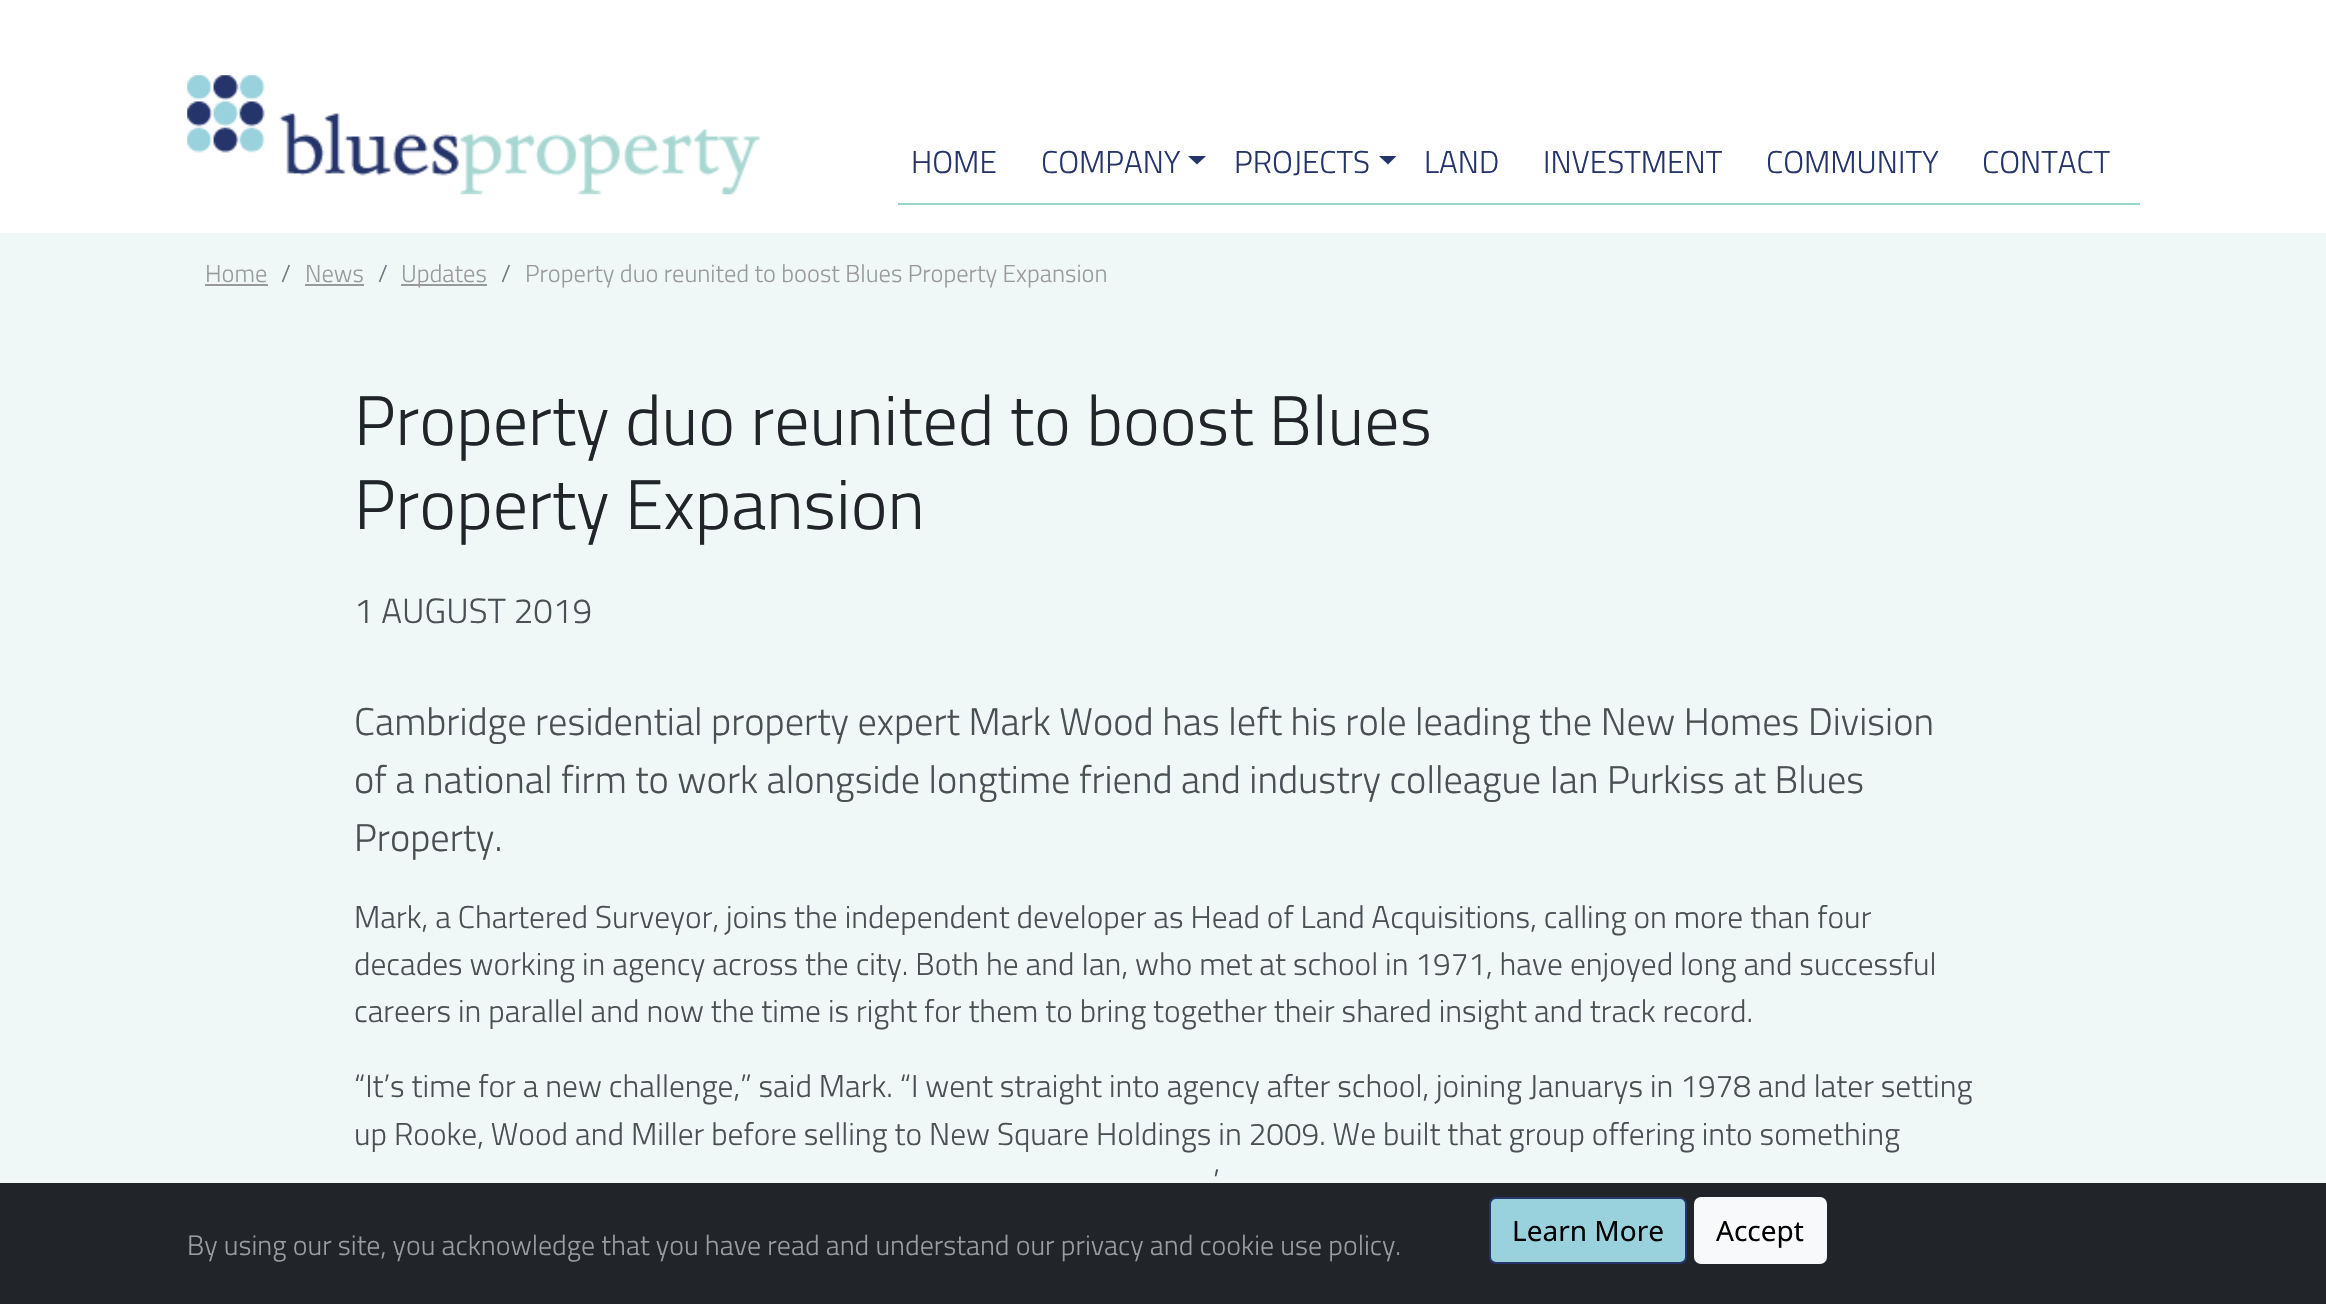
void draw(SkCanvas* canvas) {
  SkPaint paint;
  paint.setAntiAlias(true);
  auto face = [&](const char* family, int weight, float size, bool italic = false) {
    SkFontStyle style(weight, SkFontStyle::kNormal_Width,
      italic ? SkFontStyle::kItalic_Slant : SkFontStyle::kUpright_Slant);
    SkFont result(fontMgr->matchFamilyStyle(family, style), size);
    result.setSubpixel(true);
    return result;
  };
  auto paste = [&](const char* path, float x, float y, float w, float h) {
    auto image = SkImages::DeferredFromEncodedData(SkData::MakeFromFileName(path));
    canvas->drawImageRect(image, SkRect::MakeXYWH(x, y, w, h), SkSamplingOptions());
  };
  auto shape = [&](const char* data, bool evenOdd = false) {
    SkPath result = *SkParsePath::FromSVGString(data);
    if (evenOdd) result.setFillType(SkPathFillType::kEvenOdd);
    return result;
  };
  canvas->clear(0xffeff8f7);
  paint.setColor(0xffffffff);
  canvas->drawRect(SkRect::MakeXYWH(0, 0, 2326, 233), paint);
  paste("img/1.png", 187, 75, 573, 120);
  paint.setColor(0xff99d6ce);
  canvas->drawRect(SkRect::MakeXYWH(898, 203, 1242, 2), paint);
  paint.setColor(0xff25346a);
  canvas->drawPath(shape("M1188 156H1206L1197 164.5Z"), paint);
  canvas->drawPath(shape("M1379 156H1396.5L1388 164.5Z"), paint);
  {
    const struct { float x, y, w, h; SkColor color; } items[] = {
      {205, 284, 63, 2, 0xff999999},
      {305, 284, 59, 2, 0xff999999},
      {401, 284, 86, 2, 0xff999999},
      {0, 1183, 2326, 121, 0xff212529},
    };
    for (auto [x, y, w, h, color] : items) {
      paint.setColor(color);
      canvas->drawRect(SkRect::MakeXYWH(x, y, w, h), paint);
    }
  }
  paint.setColor(0xff99d1dc);
  canvas->drawRoundRect(SkRect::MakeXYWH(1490, 1198, 196, 65), 6, 6, paint);
  paint.setStroke(true);
  paint.setStrokeWidth(2);
  paint.setColor(0xff25346a);
  canvas->drawRoundRect(SkRect::MakeXYWH(1490, 1198, 196, 65), 6, 6, paint);
  paint.setStroke(false);
  paint.setColor(0xfff8f9fa);
  canvas->drawRoundRect(SkRect::MakeXYWH(1695, 1198, 131, 65), 6, 6, paint);
  paint.setStroke(true);
  canvas->drawRoundRect(SkRect::MakeXYWH(1695, 1198, 131, 65), 6, 6, paint);
  auto f0 = face("Titillium Web", 300, 31.5f);
  paint.setStroke(false);
  paint.setColor(0xff25346a);
  {
    const struct { const char* s; float x, y; } items[] = {
      {"HOME", 911, 173},
      {"COMPANY", 1041, 173},
      {"PROJECTS", 1234, 173},
      {"LAND", 1424, 173},
      {"INVESTMENT", 1543, 173},
      {"COMMUNITY", 1766, 173},
      {"CONTACT", 1982, 173},
    };
    for (auto [s, x, y] : items) {
      canvas->drawString(s, x, y, f0, paint);
    }
  }
  auto f1 = face("Titillium Web", 300, 24.5f);
  paint.setColor(0xff999999);
  canvas->drawString("Home", 205, 282, f1, paint);
  paint.setColor(0xff6c757d);
  canvas->drawString("/", 281, 282, f1, paint);
  paint.setColor(0xff999999);
  canvas->drawString("News", 305, 282, f1, paint);
  paint.setColor(0xff6c757d);
  canvas->drawString("/", 378, 282, f1, paint);
  paint.setColor(0xff999999);
  canvas->drawString("Updates", 401, 282, f1, paint);
  paint.setColor(0xff6c757d);
  canvas->drawString("/", 501, 282, f1, paint);
  paint.setColor(0xff999999);
  canvas->drawString("Property duo reunited to boost Blues Property Expansion", 525, 282, f1, paint);
  auto f2 = face("Titillium Web", 300, 70);
  paint.setColor(0xff212529);
  canvas->drawString("Property duo reunited to boost Blues", 354, 445, f2, paint);
  canvas->drawString("Property Expansion", 354, 529, f2, paint);
  auto f3 = face("Titillium Web", 300, 35);
  paint.setColor(0xff4a4f54);
  canvas->drawString("1 AUGUST 2019", 354, 623, f3, paint);
  auto f4 = face("Titillium Web", 300, 38.5f);
  {
    const struct { const char* s; float x, y; } items[] = {
      {"Cambridge residential property expert Mark Wood has left his role leading the New Homes Division", 354, 735},
      {"of a national firm to work alongside longtime friend and industry colleague Ian Purkiss at Blues", 354, 793},
      {"Property.", 354, 851},
    };
    for (auto [s, x, y] : items) {
      canvas->drawString(s, x, y, f4, paint);
    }
  }
  {
    const struct { const char* s; float x, y; } items[] = {
      {"Mark, a Chartered Surveyor, joins the independent developer as Head of Land Acquisitions, calling on more than four", 354, 928},
      {"decades working in agency across the city. Both he and Ian, who met at school in 1971, have enjoyed long and successful", 354, 975},
      {"careers in parallel and now the time is right for them to bring together their shared insight and track record.", 354, 1022},
      {"“It’s time for a new challenge,” said Mark. “I went straight into agency after school, joining Januarys in 1978 and later setting", 354, 1097},
      {"up Rooke, Wood and Miller before selling to New Square Holdings in 2009. We built that group offering into something", 354, 1145},
      {"’", 1213, 1192},
    };
    for (auto [s, x, y] : items) {
      canvas->drawString(s, x, y, f0, paint);
    }
  }
  auto f5 = face("Titillium Web", 300, 28);
  paint.setColor(0xff9b9d9f);
  canvas->drawString("By using our site, you acknowledge that you have read and understand our privacy and cookie use policy.", 187, 1255, f5, paint);
  auto f6 = face("Noto Sans", 400, 28);
  paint.setColor(0xff000000);
  canvas->drawString("Learn More", 1512, 1241, f6, paint);
  canvas->drawString("Accept", 1716, 1241, f6, paint);
}
